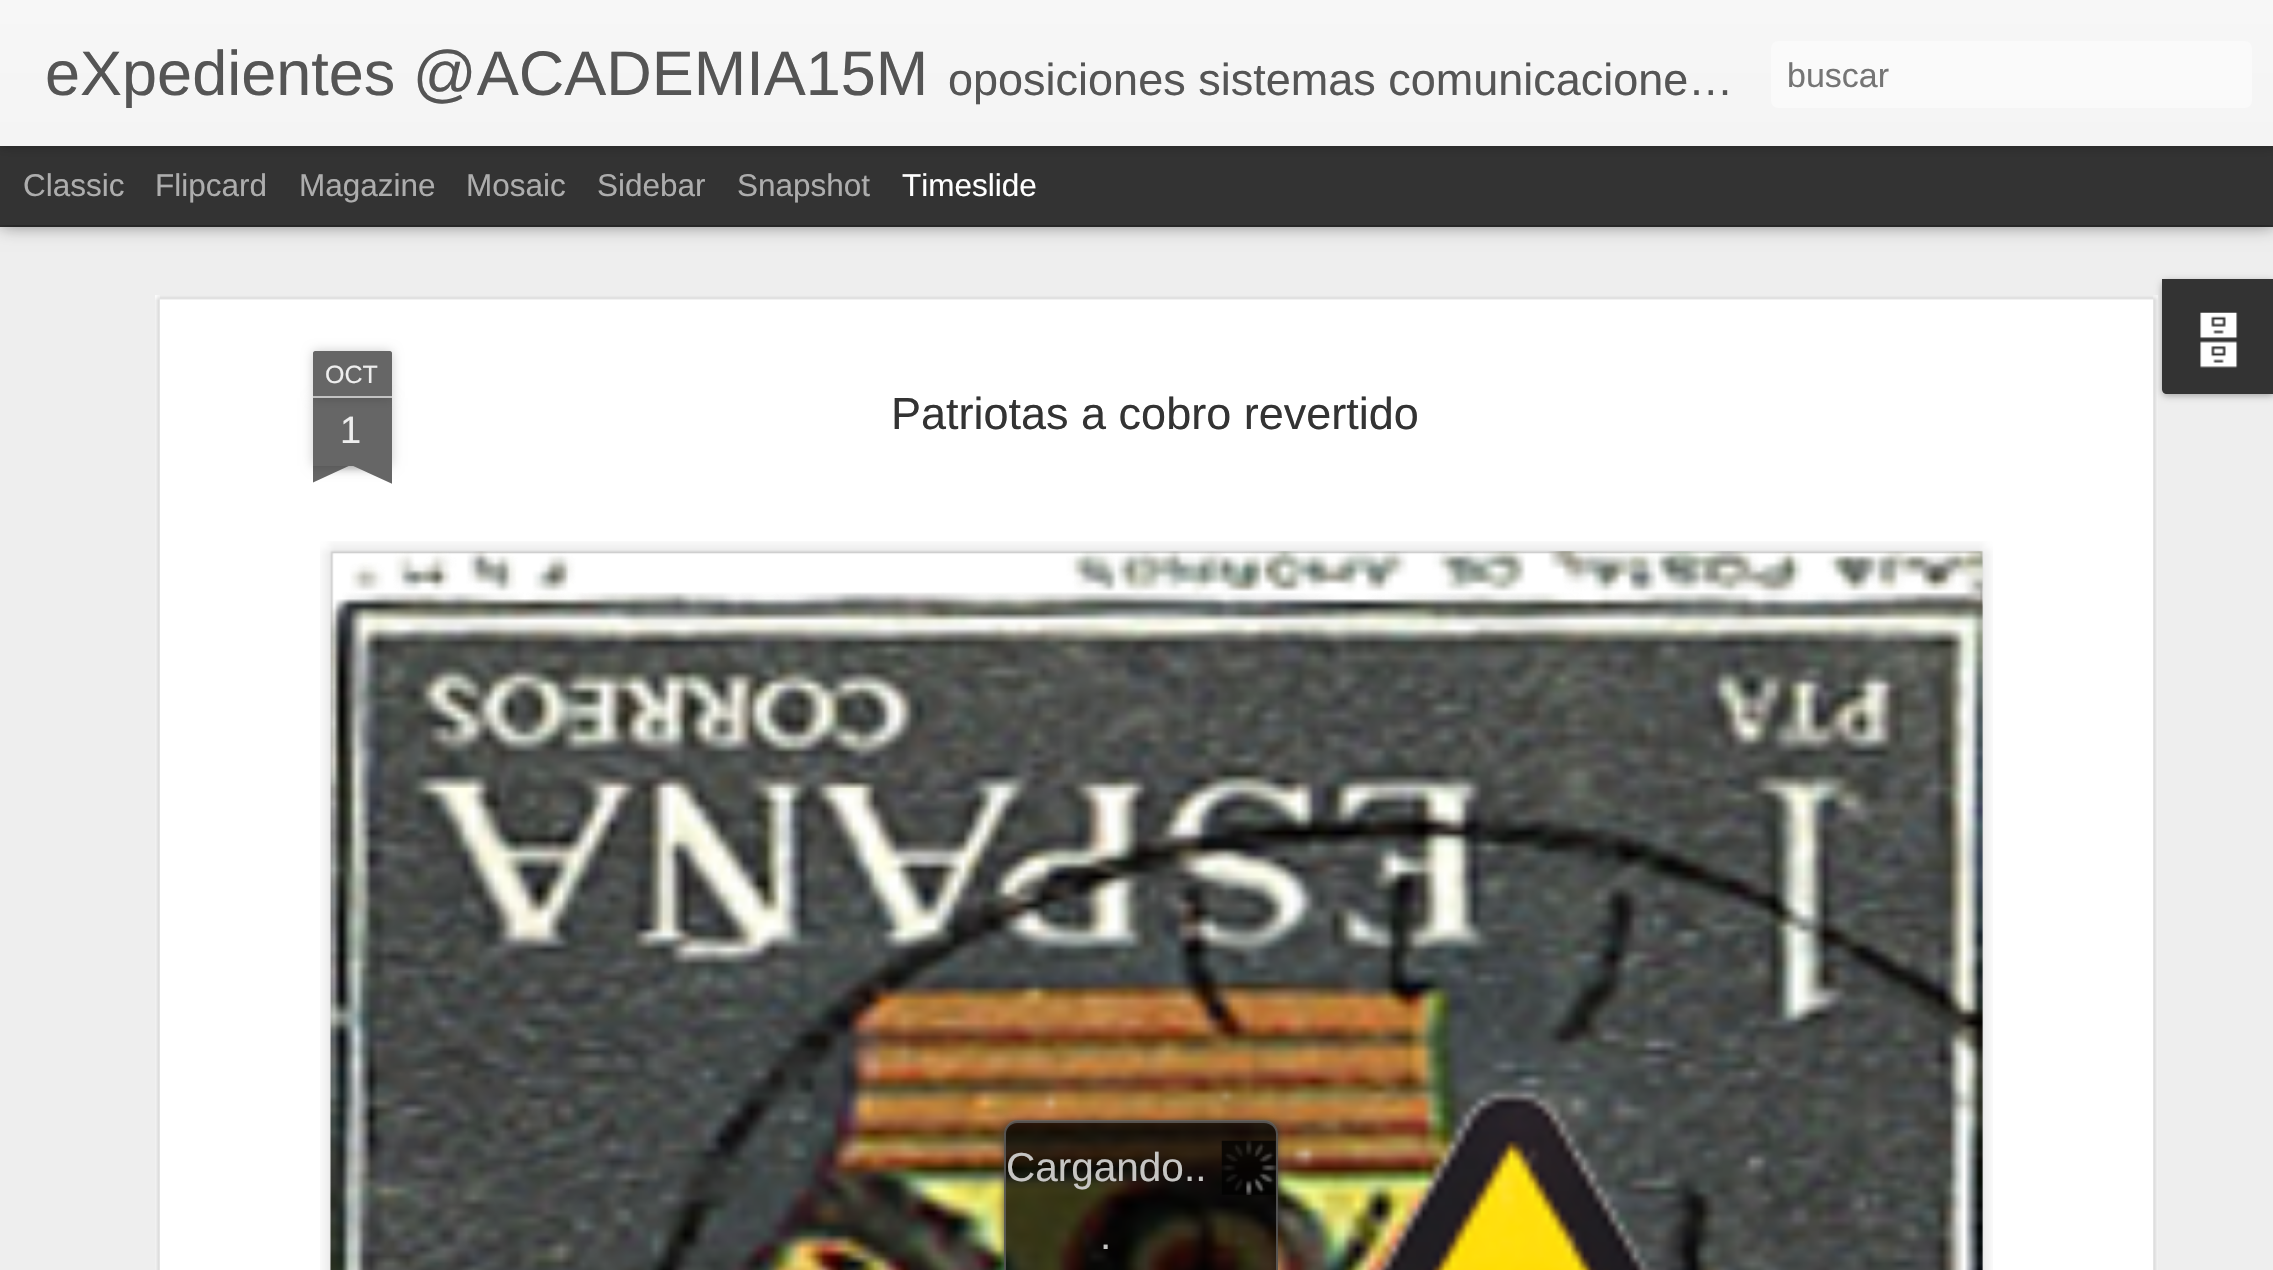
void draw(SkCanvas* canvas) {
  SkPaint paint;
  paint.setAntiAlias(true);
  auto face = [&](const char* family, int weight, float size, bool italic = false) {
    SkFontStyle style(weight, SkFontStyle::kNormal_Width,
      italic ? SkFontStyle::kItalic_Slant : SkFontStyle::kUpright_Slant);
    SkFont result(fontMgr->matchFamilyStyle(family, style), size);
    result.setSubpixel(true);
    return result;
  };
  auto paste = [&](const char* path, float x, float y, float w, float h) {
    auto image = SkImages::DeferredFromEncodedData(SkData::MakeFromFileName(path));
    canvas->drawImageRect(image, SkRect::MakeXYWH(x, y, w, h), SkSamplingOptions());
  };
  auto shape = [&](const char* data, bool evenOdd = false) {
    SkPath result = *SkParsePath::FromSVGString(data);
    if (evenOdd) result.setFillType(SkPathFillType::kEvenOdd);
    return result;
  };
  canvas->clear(0xff333333);
  paint.setColor(0xffeeeeee);
  canvas->drawRect(SkRect::MakeXYWH(0, 227, 2273, 1043), paint);
  paint.setColor(0x80000000);
  paint.setMaskFilter(SkMaskFilter::MakeBlur(kNormal_SkBlurStyle, 9));
  canvas->drawRect(SkRect::MakeXYWH(0, 146, 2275, 79), paint);
  paint.setMaskFilter(nullptr);
  paint.setColor(0xff333333);
  canvas->drawRect(SkRect::MakeXYWH(0, 146, 2273, 79), paint);
  paint.setColor(0x4d000000);
  paint.setMaskFilter(SkMaskFilter::MakeBlur(kNormal_SkBlurStyle, 5.5f));
  canvas->drawRect(SkRect::MakeXYWH(0, 0, 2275, 146), paint);
  paint.setMaskFilter(nullptr);
  {
    const SkColor colors[] = {0xfff7f7f7, 0xfff4f4f4};
    const float stops[] = {0, 1};
    const SkPoint ends[] = {{0, 0}, {0, 146}};
    paint.setShader(SkGradientShader::MakeLinear(ends, colors, stops, 2, SkTileMode::kClamp));
    paint.setAlpha(255);
  }
  canvas->drawRect(SkRect::MakeXYWH(0, 0, 2273, 146), paint);
  paint.setShader(nullptr);
  paint.setColor(0xfffafafa);
  canvas->drawRoundRect(SkRect::MakeXYWH(1771, 41, 481, 67), 7, 7, paint);
  paint.setColor(0xffffffff);
  canvas->drawRect(SkRect::MakeXYWH(155, 295, 2003, 975), paint);
  paste("img/1.png", 155, 295, 2003, 975);
  paint.setColor(0x33000000);
  paint.setMaskFilter(SkMaskFilter::MakeBlur(kNormal_SkBlurStyle, 5.5f));
  canvas->drawRect(SkRect::MakeXYWH(313, 398, 79, 68), paint);
  paint.setMaskFilter(nullptr);
  paint.setColor(0xff666666);
  canvas->drawRect(SkRect::MakeXYWH(313, 398, 79, 68), paint);
  paint.setColor(0x33000000);
  paint.setMaskFilter(SkMaskFilter::MakeBlur(kNormal_SkBlurStyle, 5.5f));
  canvas->drawRoundRect(SkRect::MakeXYWH(313, 351, 79, 47), 2, 2, paint);
  paint.setMaskFilter(nullptr);
  paint.setColor(0xff666666);
  canvas->drawPath(shape("M315 351H390C391 351 392 352 392 353V398H313V353C313 352 314 351 315 351Z"), paint);
  paint.setColor(0xffc2c2c2);
  canvas->drawRect(SkRect::MakeXYWH(313, 396, 79, 2), paint);
  canvas->save();
  canvas->clipRect(SkRect::MakeXYWH(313, 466, 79, 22));
  paint.setColor(0x33000000);
  paint.setMaskFilter(SkMaskFilter::MakeBlur(kNormal_SkBlurStyle, 5.5f));
  canvas->drawRect(SkRect::MakeXYWH(293, 443, 112, 23), paint);
  paint.setMaskFilter(nullptr);
  canvas->restore();
  canvas->save();
  canvas->clipRect(SkRect::MakeXYWH(313, 466, 79, 22));
  paint.setColor(0xff666666);
  canvas->drawPath(shape("M292 468L394 421L403 441L301 488Z"), paint);
  canvas->restore();
  canvas->save();
  canvas->clipRect(SkRect::MakeXYWH(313, 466, 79, 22));
  paint.setColor(0x33000000);
  paint.setMaskFilter(SkMaskFilter::MakeBlur(kNormal_SkBlurStyle, 5.5f));
  canvas->drawRect(SkRect::MakeXYWH(299, 443, 113, 23), paint);
  paint.setMaskFilter(nullptr);
  canvas->restore();
  canvas->save();
  canvas->clipRect(SkRect::MakeXYWH(313, 466, 79, 22));
  paint.setColor(0xff666666);
  canvas->drawPath(shape("M308 421L410 468L401 488L299 441Z"), paint);
  canvas->restore();
  paste("img/2.png", 320, 541, 1673, 729);
  paste("img/3.png", 330, 551, 1653, 719);
  paint.setColor(0x4d000000);
  paint.setMaskFilter(SkMaskFilter::MakeBlur(kNormal_SkBlurStyle, 3.5f));
  canvas->drawRoundRect(SkRect::MakeXYWH(2162, 281, 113, 115), 5, 5, paint);
  paint.setMaskFilter(nullptr);
  paint.setColor(0xff333333);
  canvas->drawPath(shape("M2162 279H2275V394H2167C2164 394 2162 392 2162 389Z"), paint);
  paste("img/4.png", 2200, 312, 38, 56);
  canvas->save();
  canvas->clipPath(shape("M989 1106H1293V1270H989ZM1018 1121H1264C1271.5 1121 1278 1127.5 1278 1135V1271H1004V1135C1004 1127.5 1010.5 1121 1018 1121Z", true), true);
  paint.setColor(0xbf333333);
  paint.setMaskFilter(SkMaskFilter::MakeBlur(kNormal_SkBlurStyle, 4.5f));
  canvas->drawRoundRect(SkRect::MakeXYWH(1004, 1121, 274, 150), 14, 14, paint);
  paint.setMaskFilter(nullptr);
  canvas->restore();
  paint.setColor(0xbf000000);
  canvas->drawPath(shape("M1018 1121H1264C1271.5 1121 1278 1127.5 1278 1135V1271H1004V1135C1004 1127.5 1010.5 1121 1018 1121Z"), paint);
  paint.setColor(0xbf666666);
  canvas->drawPath(shape("M1017 1120H1264C1272 1120 1278 1127 1278 1134V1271H1004V1134C1004 1127 1010 1120 1017 1120ZM1017 1123H1264C1271 1123 1276 1128 1276 1134V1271H1006V1134C1006 1128 1011 1123 1017 1123Z", true), paint);
  paste("img/5.png", 1221, 1140, 55, 55);
  auto f0 = face("Liberation Sans", 400, 63);
  paint.setColor(0xff555555);
  canvas->drawString("eXpedientes @ACADEMIA15M", 45, 95, f0, paint);
  auto f1 = face("Liberation Sans", 400, 45);
  canvas->drawString("oposiciones sistemas comunicacione…", 948, 95, f1, paint);
  auto f2 = face("Liberation Sans", 400, 34);
  paint.setColor(0xff757575);
  canvas->drawString("buscar", 1787, 87, f2, paint);
  auto f3 = face("Liberation Sans", 400, 31.5f);
  paint.setColor(0xffadadad);
  {
    const struct { const char* s; float x, y; } items[] = {
      {"Classic", 23, 196},
      {"Flipcard", 155, 196},
      {"Magazine", 299, 196},
      {"Mosaic", 466, 196},
      {"Sidebar", 597, 196},
      {"Snapshot", 737, 196},
    };
    for (auto [s, x, y] : items) {
      canvas->drawString(s, x, y, f3, paint);
    }
  }
  paint.setColor(0xffffffff);
  canvas->drawString("Timeslide", 902, 196, f3, paint);
  auto f4 = face("Liberation Sans", 400, 25);
  paint.setColor(0xffeeeeee);
  canvas->drawString("OCT", 325, 383, f4, paint);
  auto f5 = face("Liberation Sans", 400, 38);
  canvas->drawString("1", 340, 443, f5, paint);
  paint.setColor(0xff333333);
  canvas->drawString("Patriotas a cobro revertido", 891, 429, f1, paint);
  auto f6 = face("Liberation Sans", 400, 40.5f);
  paint.setColor(0xffc6c5c3);
  {
    const struct { const char* s; float x, y; } items[] = {
      {"Cargando", 1006, 1181},
      {"..", 1184, 1181},
      {".", 1100, 1249},
    };
    for (auto [s, x, y] : items) {
      canvas->drawString(s, x, y, f6, paint);
    }
  }
}
